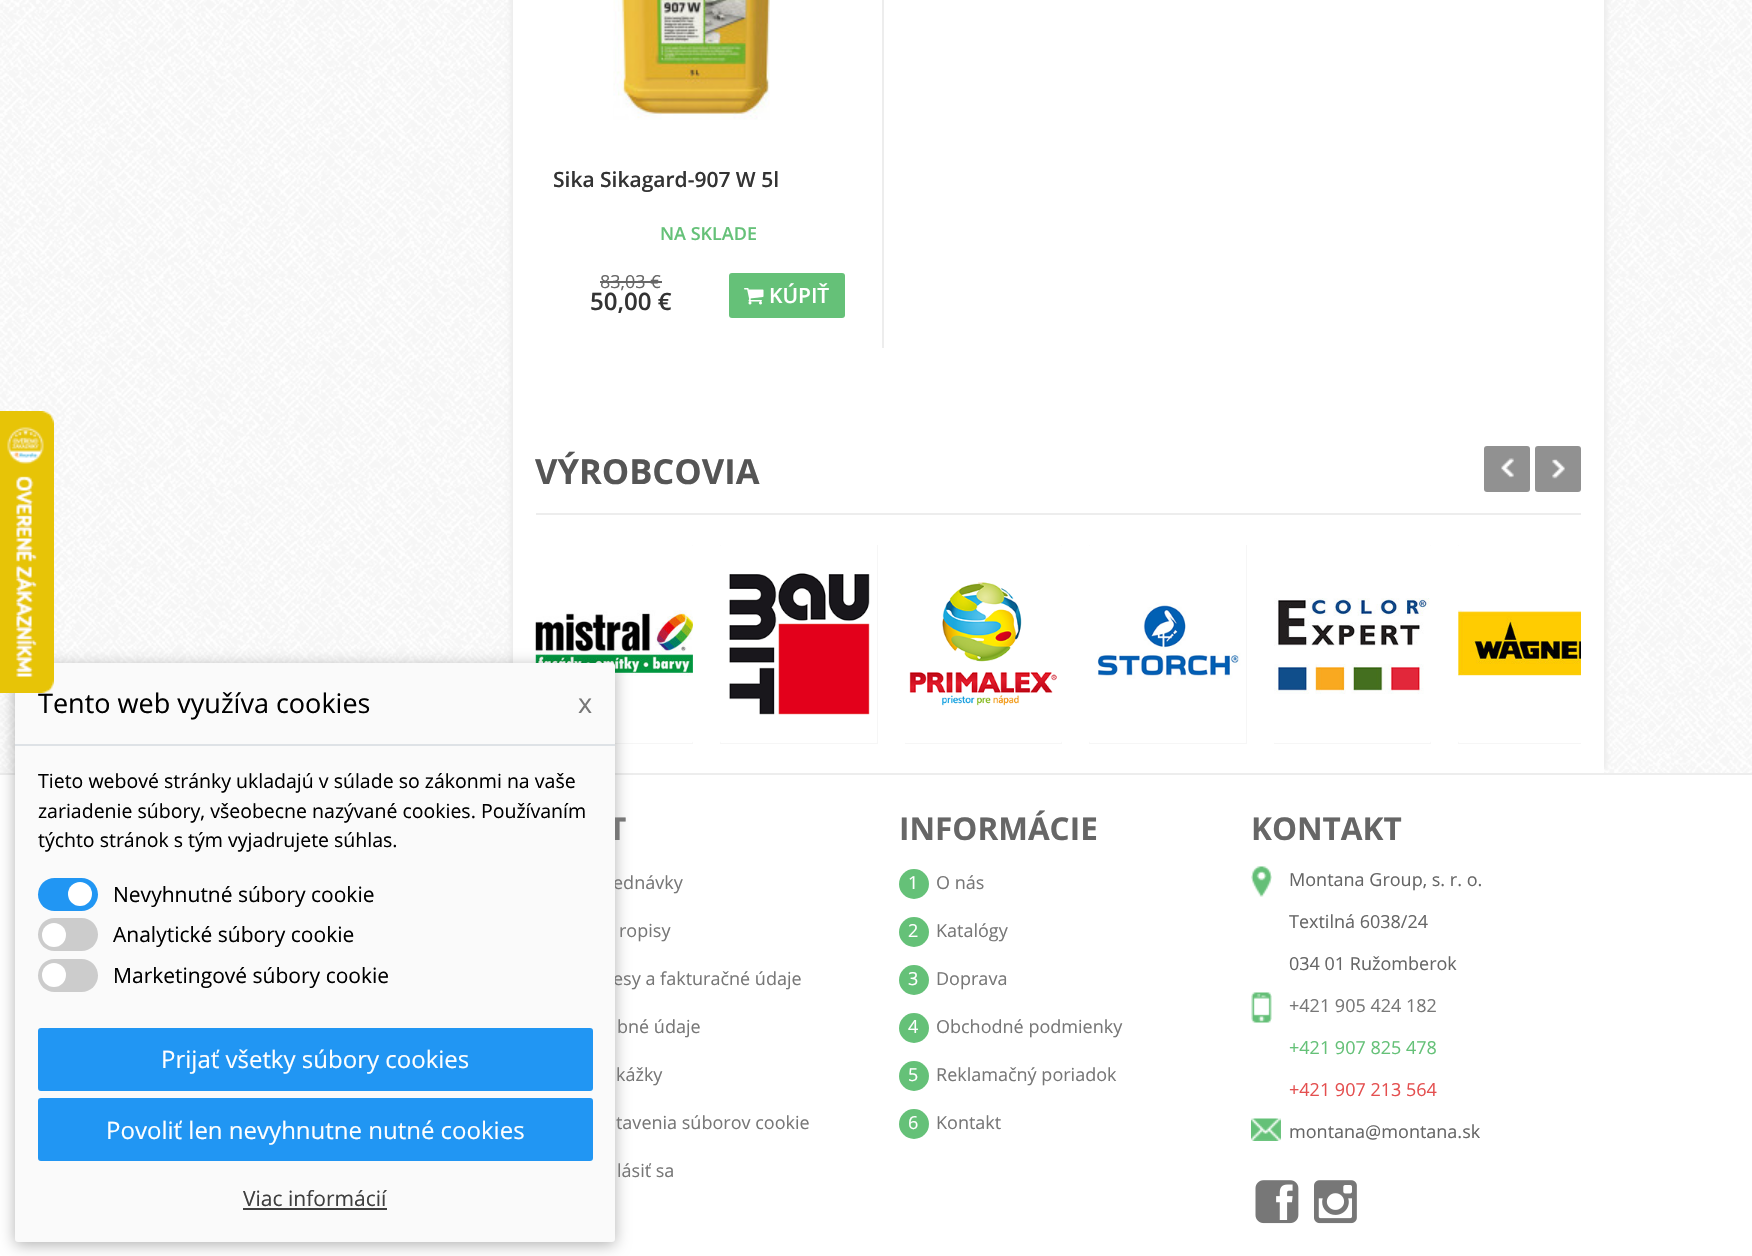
void draw(SkCanvas* canvas) {
  SkPaint paint;
  paint.setAntiAlias(true);
  auto face = [&](const char* family, int weight, float size, bool italic = false) {
    SkFontStyle style(weight, SkFontStyle::kNormal_Width,
      italic ? SkFontStyle::kItalic_Slant : SkFontStyle::kUpright_Slant);
    SkFont result(fontMgr->matchFamilyStyle(family, style), size);
    result.setSubpixel(true);
    return result;
  };
  auto paste = [&](const char* path, float x, float y, float w, float h) {
    auto image = SkImages::DeferredFromEncodedData(SkData::MakeFromFileName(path));
    canvas->drawImageRect(image, SkRect::MakeXYWH(x, y, w, h), SkSamplingOptions());
  };
  canvas->clear(0xffffffff);
  paste("img/1.png", 0, 0, 1752, 773);
  paint.setColor(0xffededed);
  paint.setMaskFilter(SkMaskFilter::MakeBlur(kNormal_SkBlurStyle, 2));
  canvas->drawRect(SkRect::MakeXYWH(510, -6, 1082, 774), paint);
  paint.setMaskFilter(nullptr);
  paint.setMaskFilter(SkMaskFilter::MakeBlur(kNormal_SkBlurStyle, 2));
  canvas->drawRect(SkRect::MakeXYWH(525, -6, 1082, 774), paint);
  paint.setMaskFilter(nullptr);
  paint.setColor(0xffffffff);
  canvas->drawRect(SkRect::MakeXYWH(513, 0, 1091, 773), paint);
  paint.setColor(0xffededed);
  canvas->drawRect(SkRect::MakeXYWH(882, 0, 2, 348), paint);
  paste("img/3.png", 613, 0, 157, 120);
  paint.setColor(0xff666666);
  canvas->drawRect(SkRect::MakeXYWH(600, 281, 62, 2), paint);
  paint.setColor(0xff65c178);
  canvas->drawRoundRect(SkRect::MakeXYWH(729, 273, 116, 45), 3, 3, paint);
  paste("img/4.png", 744, 288, 20, 17);
  paint.setColor(0xff919191);
  canvas->drawRoundRect(SkRect::MakeXYWH(1484, 446, 46, 46), 3, 3, paint);
  paste("img/5.png", 1501, 458, 13, 20);
  canvas->drawRoundRect(SkRect::MakeXYWH(1535, 446, 46, 46), 3, 3, paint);
  paste("img/6.png", 1552, 459, 13, 20);
  paint.setColor(0xfff6f6f6);
  canvas->drawRect(SkRect::MakeXYWH(615, 545, 78, 199), paint);
  paste("img/7.png", 535, 545, 158, 198);
  canvas->drawRect(SkRect::MakeXYWH(720, 545, 158, 199), paint);
  paste("img/8.png", 720, 545, 157, 198);
  canvas->drawRect(SkRect::MakeXYWH(905, 545, 157, 199), paint);
  paste("img/9.png", 905, 545, 157, 198);
  canvas->drawRect(SkRect::MakeXYWH(1089, 545, 158, 199), paint);
  paste("img/10.png", 1089, 545, 157, 198);
  canvas->drawRect(SkRect::MakeXYWH(1274, 545, 157, 199), paint);
  paste("img/11.png", 1274, 545, 157, 198);
  canvas->drawRect(SkRect::MakeXYWH(1458, 545, 123, 199), paint);
  paste("img/12.png", 1458, 545, 123, 198);
  paint.setColor(0xffededed);
  canvas->drawRect(SkRect::MakeXYWH(536, 513, 1045, 2), paint);
  canvas->drawRect(SkRect::MakeXYWH(0, 773, 1752, 2), paint);
  paint.setColor(0xff65c178);
  canvas->drawCircle(914, 884, 15, paint);
  canvas->drawCircle(914, 932, 15, paint);
  canvas->drawCircle(914, 980, 15, paint);
  canvas->drawCircle(914, 1028, 15, paint);
  canvas->drawCircle(914, 1076, 15, paint);
  canvas->drawCircle(914, 1124, 15, paint);
  paste("img/13.png", 1251, 866, 21, 31);
  paste("img/14.png", 1251, 992, 21, 31);
  paste("img/15.png", 1251, 1118, 30, 23);
  paste("img/16.png", 1255, 1180, 44, 44);
  paste("img/17.png", 1314, 1180, 43, 44);
  paint.setColor(0x4d000000);
  paint.setMaskFilter(SkMaskFilter::MakeBlur(kNormal_SkBlurStyle, 7.5f));
  canvas->drawRoundRect(SkRect::MakeXYWH(15, 666, 600, 579), 3, 3, paint);
  paint.setMaskFilter(nullptr);
  auto f0 = face("Open Sans", 600, 21);
  paint.setColor(0xff333333);
  canvas->drawString("Sika Sikagard-907 W 5l", 553, 187, f0, paint);
  auto f1 = face("Open Sans", 600, 18);
  paint.setColor(0xff65c178);
  canvas->drawString("NA SKLADE", 660, 240, f1, paint);
  auto f2 = face("Open Sans", 400, 18);
  paint.setColor(0xff666666);
  canvas->drawString("83,03 €", 600, 288, f2, paint);
  auto f3 = face("Open Sans", 600, 24);
  paint.setColor(0xff333333);
  canvas->drawString("50,00 €", 590, 310, f3, paint);
  paint.setColor(0xffffffff);
  canvas->drawString("KÚPIŤ", 769, 303, f0, paint);
  auto f4 = face("Open Sans", 700, 34.5f);
  paint.setColor(0xff555555);
  canvas->drawString("VÝROBCOVIA", 535, 484, f4, paint);
  auto f5 = face("Open Sans", 700, 31.5f);
  paint.setColor(0xff777777);
  canvas->drawString("T", 608, 840, f5, paint);
  {
    const struct { const char* s; float x, y; } items[] = {
      {"ednávky", 613, 889},
      {"ropisy", 619, 937},
      {"esy a fakturačné údaje", 613, 985},
      {"bné údaje", 617, 1033},
      {"kážky", 616, 1081},
      {"tavenia súborov cookie", 616, 1129},
      {"lásiť sa", 617, 1177},
    };
    for (auto [s, x, y] : items) {
      canvas->drawString(s, x, y, f2, paint);
    }
  }
  paint.setColor(0xff666666);
  canvas->drawString("INFORMÁCIE", 899, 840, f5, paint);
  paint.setColor(0xffffffff);
  canvas->drawString("1", 908, 889, f2, paint);
  paint.setColor(0xff777777);
  canvas->drawString("O nás", 936, 889, f2, paint);
  paint.setColor(0xffffffff);
  canvas->drawString("2", 908, 937, f2, paint);
  paint.setColor(0xff777777);
  canvas->drawString("Katalógy", 936, 937, f2, paint);
  paint.setColor(0xffffffff);
  canvas->drawString("3", 908, 985, f2, paint);
  paint.setColor(0xff777777);
  canvas->drawString("Doprava", 936, 985, f2, paint);
  paint.setColor(0xffffffff);
  canvas->drawString("4", 908, 1033, f2, paint);
  paint.setColor(0xff777777);
  canvas->drawString("Obchodné podmienky", 936, 1033, f2, paint);
  paint.setColor(0xffffffff);
  canvas->drawString("5", 908, 1081, f2, paint);
  paint.setColor(0xff777777);
  canvas->drawString("Reklamačný poriadok", 936, 1081, f2, paint);
  paint.setColor(0xffffffff);
  canvas->drawString("6", 908, 1129, f2, paint);
  paint.setColor(0xff777777);
  canvas->drawString("Kontakt", 936, 1129, f2, paint);
  paint.setColor(0xff666666);
  canvas->drawString("KONTAKT", 1251, 840, f5, paint);
  {
    const struct { const char* s; float x, y; } items[] = {
      {"Montana Group, s. r. o.", 1289, 886},
      {"Textilná 6038/24", 1289, 928},
      {"034 01 Ružomberok", 1289, 970},
    };
    for (auto [s, x, y] : items) {
      canvas->drawString(s, x, y, f2, paint);
    }
  }
  paint.setColor(0xff777777);
  canvas->drawString("+421 905 424 182", 1289, 1012, f2, paint);
  paint.setColor(0xff65c178);
  canvas->drawString("+421 907 825 478", 1289, 1054, f2, paint);
  paint.setColor(0xffe44f4f);
  canvas->drawString("+421 907 213 564", 1289, 1096, f2, paint);
  paint.setColor(0xff666666);
  canvas->drawString("montana@montana.sk", 1289, 1138, f2, paint);
  paint.setColor(0xfffafafa);
  canvas->drawRoundRect(SkRect::MakeXYWH(15, 663, 600, 579), 3, 3, paint);
  paint.setColor(0xffdee2e6);
  canvas->drawRect(SkRect::MakeXYWH(15, 744, 600, 2), paint);
  auto f6 = face("Open Sans", 400, 27);
  paint.setColor(0xff000000);
  canvas->drawString("Tento web využíva cookies", 38, 713, f6, paint);
  paste("img/2.png", 0, 411, 54, 282);
  paint.setColor(0xff777777);
  canvas->drawString("x", 578, 713, f6, paint);
  auto f7 = face("Open Sans", 400, 19.5f);
  paint.setColor(0xff000000);
  {
    const struct { const char* s; float x, y; } items[] = {
      {"Tieto webové stránky ukladajú v súlade so zákonmi na vaše", 38, 788},
      {"zariadenie súbory, všeobecne nazývané cookies. Používaním", 38, 818},
      {"týchto stránok s tým vyjadrujete súhlas.", 38, 847},
    };
    for (auto [s, x, y] : items) {
      canvas->drawString(s, x, y, f7, paint);
    }
  }
  paint.setColor(0xff2196f3);
  canvas->drawRoundRect(SkRect::MakeXYWH(38, 878, 60, 33), 16.5f, 16.5f, paint);
  paint.setColor(0xffffffff);
  canvas->drawCircle(80, 894, 12, paint);
  auto f8 = face("Open Sans", 400, 21);
  paint.setColor(0xff000000);
  canvas->drawString("Nevyhnutné súbory cookie", 113, 902, f8, paint);
  paint.setColor(0xffcccccc);
  canvas->drawRoundRect(SkRect::MakeXYWH(38, 918, 60, 33), 16.5f, 16.5f, paint);
  paint.setColor(0xffffffff);
  canvas->drawCircle(54, 935, 12, paint);
  paint.setColor(0xff000000);
  canvas->drawString("Analytické súbory cookie", 113, 942, f8, paint);
  paint.setColor(0xffcccccc);
  canvas->drawRoundRect(SkRect::MakeXYWH(38, 959, 60, 33), 16.5f, 16.5f, paint);
  paint.setColor(0xffffffff);
  canvas->drawCircle(54, 975, 12, paint);
  paint.setColor(0xff000000);
  canvas->drawString("Marketingové súbory cookie", 113, 983, f8, paint);
  paint.setColor(0xff2196f3);
  canvas->drawRoundRect(SkRect::MakeXYWH(39, 1029, 553, 61), 2, 2, paint);
  paint.setStroke(true);
  paint.setStrokeWidth(2);
  canvas->drawRoundRect(SkRect::MakeXYWH(39, 1029, 553, 61), 2, 2, paint);
  auto f9 = face("Open Sans", 400, 24);
  paint.setStroke(false);
  paint.setColor(0xffffffff);
  canvas->drawString("Prijať všetky súbory cookies", 161, 1068, f9, paint);
  paint.setColor(0xff2196f3);
  canvas->drawRoundRect(SkRect::MakeXYWH(39, 1099, 553, 61), 2, 2, paint);
  paint.setStroke(true);
  canvas->drawRoundRect(SkRect::MakeXYWH(39, 1099, 553, 61), 2, 2, paint);
  paint.setStroke(false);
  paint.setColor(0xffffffff);
  canvas->drawString("Povoliť len nevyhnutne nutné cookies", 106, 1139, f9, paint);
  paint.setColor(0xff3f3f3f);
  canvas->drawString("Viac informácií", 243, 1206, f8, paint);
  canvas->drawRect(SkRect::MakeXYWH(243, 1208, 144, 2), paint);
}
